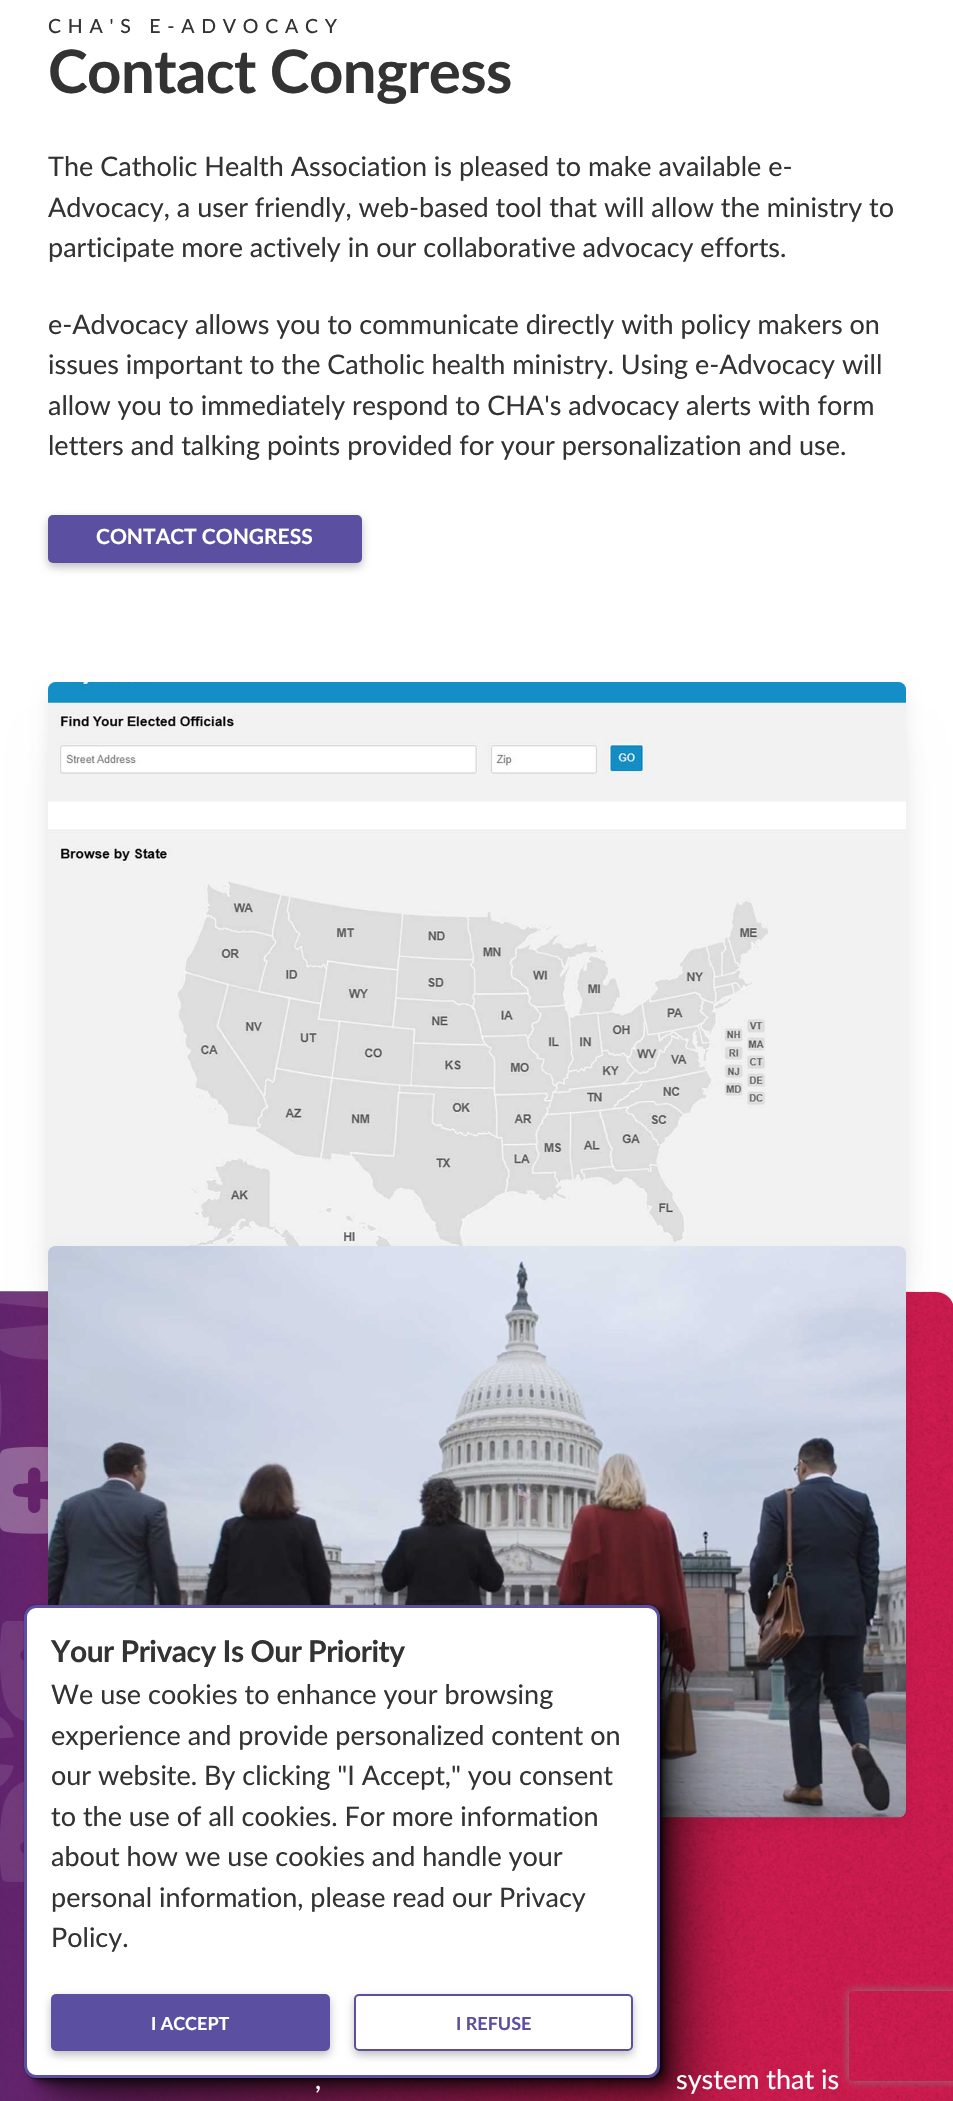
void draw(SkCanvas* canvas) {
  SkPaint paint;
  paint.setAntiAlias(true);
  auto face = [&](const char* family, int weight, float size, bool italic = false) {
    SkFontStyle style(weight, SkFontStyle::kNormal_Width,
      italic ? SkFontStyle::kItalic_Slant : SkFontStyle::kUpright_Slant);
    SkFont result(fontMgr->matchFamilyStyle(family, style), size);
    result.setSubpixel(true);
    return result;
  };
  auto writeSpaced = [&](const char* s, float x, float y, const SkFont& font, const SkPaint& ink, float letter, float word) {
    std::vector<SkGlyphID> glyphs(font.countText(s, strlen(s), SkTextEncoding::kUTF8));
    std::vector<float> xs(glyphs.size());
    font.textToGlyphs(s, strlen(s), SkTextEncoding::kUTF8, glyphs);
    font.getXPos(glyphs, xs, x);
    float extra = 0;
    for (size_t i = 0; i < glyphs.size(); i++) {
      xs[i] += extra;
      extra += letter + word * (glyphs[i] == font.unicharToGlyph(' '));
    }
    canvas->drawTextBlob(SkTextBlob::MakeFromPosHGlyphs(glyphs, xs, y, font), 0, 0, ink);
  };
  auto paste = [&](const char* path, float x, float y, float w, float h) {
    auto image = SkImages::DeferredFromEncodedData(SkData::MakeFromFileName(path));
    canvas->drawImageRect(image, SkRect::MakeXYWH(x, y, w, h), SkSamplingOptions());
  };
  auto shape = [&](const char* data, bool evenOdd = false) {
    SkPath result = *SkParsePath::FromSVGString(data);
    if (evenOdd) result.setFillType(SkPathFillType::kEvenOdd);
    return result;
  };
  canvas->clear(0xffffffff);
  paint.setColor(0x40000000);
  paint.setMaskFilter(SkMaskFilter::MakeBlur(kNormal_SkBlurStyle, 4.5f));
  canvas->drawRoundRect(SkRect::MakeXYWH(48, 519, 314, 48), 5, 5, paint);
  paint.setMaskFilter(nullptr);
  paint.setColor(0xff5b4fa1);
  canvas->drawRoundRect(SkRect::MakeXYWH(48, 515, 314, 48), 5, 5, paint);
  paint.setColor(0x12000000);
  paint.setMaskFilter(SkMaskFilter::MakeBlur(kNormal_SkBlurStyle, 7.5f));
  canvas->drawRoundRect(SkRect::MakeXYWH(48, 690, 858, 572), 8, 8, paint);
  paint.setMaskFilter(nullptr);
  paint.setColor(0xffd61c52);
  canvas->drawPath(shape("M0 1292H936C946 1292 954 1300 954 1310V2101C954 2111 946 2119 936 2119H0Z"), paint);
  paste("img/2.png", 0, 1291, 953, 810);
  paste("img/4.png", 0, 1291, 48, 591);
  paint.setColor(0x0a000000);
  paint.setMaskFilter(SkMaskFilter::MakeBlur(kNormal_SkBlurStyle, 19));
  canvas->drawRoundRect(SkRect::MakeXYWH(48, 744, 858, 572), 8, 8, paint);
  paint.setMaskFilter(nullptr);
  paste("img/1.png", 48, 682, 858, 568);
  paint.setColor(0x12000000);
  paint.setMaskFilter(SkMaskFilter::MakeBlur(kNormal_SkBlurStyle, 7.5f));
  canvas->drawRoundRect(SkRect::MakeXYWH(48, 1254, 858, 572), 8, 8, paint);
  paint.setMaskFilter(nullptr);
  paste("img/3.png", 48, 1246, 858, 572);
  paint.setColor(0x33000000);
  paint.setMaskFilter(SkMaskFilter::MakeBlur(kNormal_SkBlurStyle, 2));
  canvas->drawRoundRect(SkRect::MakeXYWH(24, 2000, 339, 69), 34.5f, 34.5f, paint);
  paint.setMaskFilter(nullptr);
  paint.setColor(0x36000000);
  paint.setMaskFilter(SkMaskFilter::MakeBlur(kNormal_SkBlurStyle, 32));
  canvas->drawRoundRect(SkRect::MakeXYWH(80, 1658, 625, 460), 6, 6, paint);
  paint.setMaskFilter(nullptr);
  paint.setColor(0x40000000);
  paint.setMaskFilter(SkMaskFilter::MakeBlur(kNormal_SkBlurStyle, 21));
  canvas->drawRoundRect(SkRect::MakeXYWH(62, 1641, 627, 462), 8, 8, paint);
  paint.setMaskFilter(nullptr);
  paint.setColor(0x4a000000);
  paint.setMaskFilter(SkMaskFilter::MakeBlur(kNormal_SkBlurStyle, 13));
  canvas->drawRoundRect(SkRect::MakeXYWH(48, 1628, 629, 465), 8, 8, paint);
  paint.setMaskFilter(nullptr);
  paint.setColor(0x57000000);
  paint.setMaskFilter(SkMaskFilter::MakeBlur(kNormal_SkBlurStyle, 7.5f));
  canvas->drawRoundRect(SkRect::MakeXYWH(39, 1620, 630, 465), 9, 9, paint);
  paint.setMaskFilter(nullptr);
  paint.setColor(0x61000000);
  paint.setMaskFilter(SkMaskFilter::MakeBlur(kNormal_SkBlurStyle, 4.5f));
  canvas->drawRoundRect(SkRect::MakeXYWH(33, 1614, 632, 468), 9, 9, paint);
  paint.setMaskFilter(nullptr);
  paint.setColor(0x6b000000);
  paint.setMaskFilter(SkMaskFilter::MakeBlur(kNormal_SkBlurStyle, 2.5f));
  canvas->drawRoundRect(SkRect::MakeXYWH(30, 1610, 632, 469), 11, 11, paint);
  paint.setMaskFilter(nullptr);
  paint.setColor(0x75000000);
  paint.setMaskFilter(SkMaskFilter::MakeBlur(kNormal_SkBlurStyle, 1));
  canvas->drawRoundRect(SkRect::MakeXYWH(27, 1608, 635, 471), 12, 12, paint);
  paint.setMaskFilter(nullptr);
  paint.setColor(0x80000000);
  paint.setMaskFilter(SkMaskFilter::MakeBlur(kNormal_SkBlurStyle, 0.5f));
  canvas->drawRoundRect(SkRect::MakeXYWH(24, 1605, 636, 473), 12, 12, paint);
  paint.setMaskFilter(nullptr);
  paint.setColor(0x66000000);
  paint.setMaskFilter(SkMaskFilter::MakeBlur(kNormal_SkBlurStyle, 0.5f));
  canvas->drawRoundRect(SkRect::MakeXYWH(27, 1608, 632, 468), 9, 9, paint);
  paint.setMaskFilter(nullptr);
  paint.setColor(0x85000000);
  paint.setMaskFilter(SkMaskFilter::MakeBlur(kNormal_SkBlurStyle, 0.5f));
  canvas->drawRoundRect(SkRect::MakeXYWH(24, 1605, 636, 473), 12, 12, paint);
  paint.setMaskFilter(nullptr);
  paint.setColor(0xffffffff);
  canvas->drawRoundRect(SkRect::MakeXYWH(25.5f, 1606.5f, 633, 470), 10.5f, 10.5f, paint);
  paint.setStroke(true);
  paint.setStrokeWidth(3);
  paint.setColor(0xff5b4fa1);
  canvas->drawRoundRect(SkRect::MakeXYWH(25.5f, 1606.5f, 633, 470), 10.5f, 10.5f, paint);
  paint.setStroke(false);
  paint.setColor(0x40000000);
  paint.setMaskFilter(SkMaskFilter::MakeBlur(kNormal_SkBlurStyle, 4.5f));
  canvas->drawRoundRect(SkRect::MakeXYWH(51, 1998, 279, 57), 5, 5, paint);
  paint.setMaskFilter(nullptr);
  paint.setColor(0xff5b4fa1);
  canvas->drawRoundRect(SkRect::MakeXYWH(51, 1994, 279, 57), 5, 5, paint);
  canvas->save();
  canvas->clipPath(shape("M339 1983H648V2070H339ZM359 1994H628C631 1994 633 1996 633 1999V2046C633 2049 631 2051 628 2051H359C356 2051 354 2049 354 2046V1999C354 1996 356 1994 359 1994Z", true), true);
  paint.setColor(0x40000000);
  paint.setMaskFilter(SkMaskFilter::MakeBlur(kNormal_SkBlurStyle, 4.5f));
  canvas->drawRoundRect(SkRect::MakeXYWH(354, 1998, 279, 57), 5, 5, paint);
  paint.setMaskFilter(nullptr);
  canvas->restore();
  paint.setStroke(true);
  paint.setStrokeWidth(2);
  paint.setColor(0xff5b4fa1);
  canvas->drawRoundRect(SkRect::MakeXYWH(355, 1995, 277, 55), 4, 4, paint);
  canvas->save();
  canvas->clipPath(shape("M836 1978H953V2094H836ZM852 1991H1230C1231.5 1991 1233 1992.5 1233 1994V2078C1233 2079.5 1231.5 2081 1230 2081H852C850.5 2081 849 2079.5 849 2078V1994C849 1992.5 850.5 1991 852 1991Z", true), true);
  paint.setStroke(false);
  paint.setColor(0xff808080);
  paint.setMaskFilter(SkMaskFilter::MakeBlur(kNormal_SkBlurStyle, 4));
  canvas->drawRoundRect(SkRect::MakeXYWH(849, 1991, 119, 90), 3, 3, paint);
  paint.setMaskFilter(nullptr);
  canvas->restore();
  auto f0 = face("Lato", 500, 19.5f);
  paint.setColor(0xff333333);
  writeSpaced("CHA'S E-ADVOCACY", 48, 33, f0, paint, 6.75f, 0);
  auto f1 = face("Lato", 700, 60);
  writeSpaced("Contact Congress", 48, 93, f1, paint, -0.6f, 0);
  auto f2 = face("Lato", 400, 27);
  {
    const struct { const char* s; float x, y; } items[] = {
      {"The Catholic Health Association is pleased to make available e-", 48, 176},
      {"Advocacy, a user friendly, web-based tool that will allow the ministry to", 48, 217},
      {"participate more actively in our collaborative advocacy efforts.", 48, 257},
      {"e-Advocacy allows you to communicate directly with policy makers on", 48, 334},
      {"issues important to the Catholic health ministry. Using e-Advocacy will", 48, 374},
      {"allow you to immediately respond to CHA's advocacy alerts with form", 48, 415},
      {"letters and talking points provided for your personalization and use.", 48, 455},
    };
    for (auto [s, x, y] : items) {
      canvas->drawString(s, x, y, f2, paint);
    }
  }
  auto f3 = face("Lato", 700, 21);
  paint.setColor(0xffffffff);
  canvas->drawString("CONTACT CONGRESS", 96, 544, f3, paint);
  canvas->drawString(",", 315, 2089, f2, paint);
  canvas->drawString("system that is", 676, 2089, f2, paint);
  auto f4 = face("Lato", 700, 30);
  paint.setColor(0xff333333);
  writeSpaced("Your Privacy Is Our Priority", 51, 1662, f4, paint, -0.5f, 0);
  {
    const struct { const char* s; float x, y; } items[] = {
      {"We use cookies to enhance your browsing", 51, 1704},
      {"experience and provide personalized content on", 51, 1745},
      {"our website. By clicking \"I Accept,\" you consent", 51, 1785},
      {"to the use of all cookies. For more information", 51, 1826},
      {"about how we use cookies and handle your", 51, 1866},
      {"personal information, please read our Privacy", 51, 1907},
      {"Policy.", 51, 1947},
    };
    for (auto [s, x, y] : items) {
      canvas->drawString(s, x, y, f2, paint);
    }
  }
  auto f5 = face("Lato", 700, 18);
  paint.setColor(0xffffffff);
  canvas->drawString("I ACCEPT", 151, 2030, f5, paint);
  paint.setColor(0xff5b4fa1);
  canvas->drawString("I REFUSE", 456, 2030, f5, paint);
}
